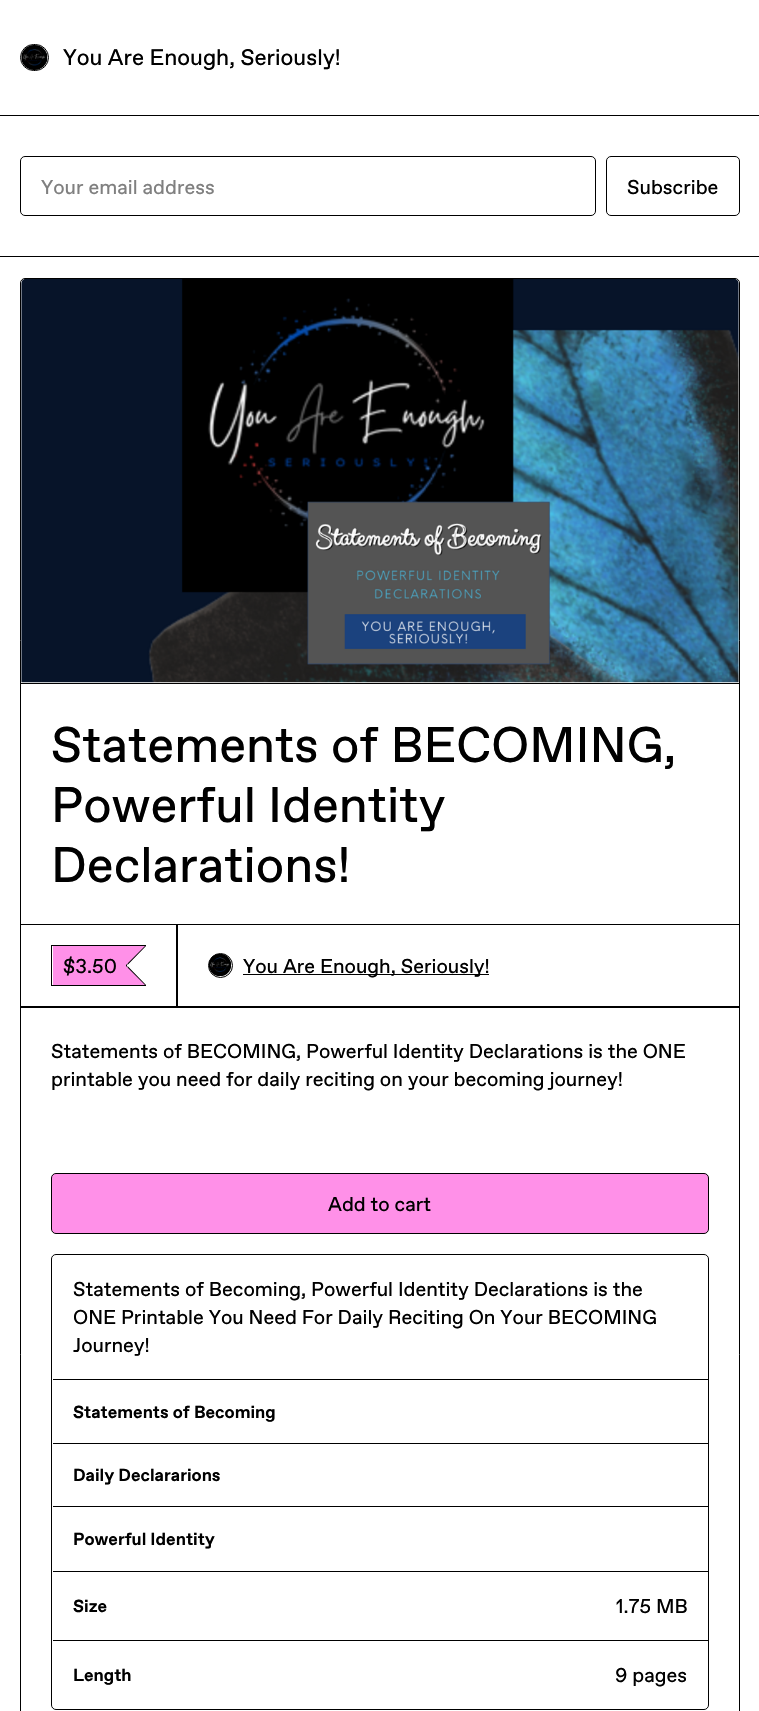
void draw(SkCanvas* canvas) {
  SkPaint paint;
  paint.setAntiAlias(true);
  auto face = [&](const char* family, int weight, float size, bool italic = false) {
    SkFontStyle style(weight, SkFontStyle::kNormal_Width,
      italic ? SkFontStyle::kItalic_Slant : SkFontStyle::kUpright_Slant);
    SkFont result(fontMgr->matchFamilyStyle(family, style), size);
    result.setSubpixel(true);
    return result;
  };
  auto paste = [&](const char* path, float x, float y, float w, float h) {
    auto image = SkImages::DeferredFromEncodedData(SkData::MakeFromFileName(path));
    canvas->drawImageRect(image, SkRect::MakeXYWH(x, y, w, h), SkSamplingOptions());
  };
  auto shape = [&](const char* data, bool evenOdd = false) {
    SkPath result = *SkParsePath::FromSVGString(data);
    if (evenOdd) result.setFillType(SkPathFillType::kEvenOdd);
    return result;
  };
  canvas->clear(0xffffffff);
  paint.setColor(0xff000000);
  canvas->drawRect(SkRect::MakeXYWH(0, 115, 759, 1), paint);
  paint.setStroke(true);
  paint.setStrokeWidth(1);
  canvas->drawRoundRect(SkRect::MakeXYWH(20.5f, 44.5f, 28, 26), 13, 13, paint);
  paste("img/1.png", 21, 45, 27, 25);
  paint.setStroke(false);
  canvas->drawRect(SkRect::MakeXYWH(0, 256, 759, 1), paint);
  paint.setStroke(true);
  canvas->drawRoundRect(SkRect::MakeXYWH(20.5f, 156.5f, 575, 59), 4.5f, 4.5f, paint);
  canvas->drawRoundRect(SkRect::MakeXYWH(606.5f, 156.5f, 133, 59), 4.5f, 4.5f, paint);
  canvas->drawRoundRect(SkRect::MakeXYWH(20.5f, 278.5f, 719, 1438), 4.5f, 4.5f, paint);
  paint.setStroke(false);
  canvas->drawRect(SkRect::MakeXYWH(21, 683, 718, 1), paint);
  paste("img/2.png", 21, 279, 718, 404);
  canvas->drawRect(SkRect::MakeXYWH(21, 1006, 718, 1), paint);
  paint.setStroke(true);
  canvas->drawRect(SkRect::MakeXYWH(20.5f, 924.5f, 157, 83), paint);
  paint.setStroke(false);
  {
    const struct { float x, y, w, h; SkColor color; } items[] = {
      {51, 945, 95, 1, 0xff000000},
      {51, 985, 95, 1, 0xff000000},
      {51, 945, 1, 41, 0xff000000},
      {53, 946, 73, 39, 0xffff90e8},
    };
    for (auto [x, y, w, h, color] : items) {
      paint.setColor(color);
      canvas->drawRect(SkRect::MakeXYWH(x, y, w, h), paint);
    }
  }
  paint.setColor(0xff000000);
  canvas->drawPath(shape("M126 946H146L127.5 965ZM146 985H126L127.5 966Z"), paint);
  canvas->drawRect(SkRect::MakeXYWH(126, 964, 1, 3), paint);
  paint.setColor(0xffff90e8);
  canvas->drawPath(shape("M125 946H145L126 965ZM145 985H125L126 966Z"), paint);
  paint.setStroke(true);
  paint.setColor(0xff000000);
  canvas->drawRect(SkRect::MakeXYWH(176.5f, 924.5f, 563, 83), paint);
  canvas->drawCircle(220.5f, 965.5f, 12, paint);
  paste("img/3.png", 209, 954, 23, 23);
  paint.setStroke(false);
  canvas->drawRect(SkRect::MakeXYWH(243, 974, 246, 1), paint);
  paint.setColor(0xffff90e8);
  canvas->drawRoundRect(SkRect::MakeXYWH(51.5f, 1173.5f, 657, 60), 4.5f, 4.5f, paint);
  paint.setStroke(true);
  paint.setColor(0xff000000);
  canvas->drawRoundRect(SkRect::MakeXYWH(51.5f, 1173.5f, 657, 60), 4.5f, 4.5f, paint);
  canvas->drawRoundRect(SkRect::MakeXYWH(51.5f, 1254.5f, 657, 455), 4.5f, 4.5f, paint);
  paint.setStroke(false);
  {
    const struct { float x, y, w, h; SkColor color; } items[] = {
      {53, 1379, 655, 1, 0xff000000},
      {53, 1443, 655, 1, 0xff000000},
      {53, 1506, 655, 1, 0xff000000},
      {53, 1571, 655, 1, 0xff000000},
      {53, 1640, 655, 1, 0xff000000},
    };
    for (auto [x, y, w, h, color] : items) {
      paint.setColor(color);
      canvas->drawRect(SkRect::MakeXYWH(x, y, w, h), paint);
    }
  }
  auto f0 = face("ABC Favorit", 400, 22.5f);
  canvas->drawString("You Are Enough, Seriously!", 63, 65, f0, paint);
  auto f1 = face("ABC Favorit", 400, 20);
  paint.setColor(0xff808080);
  canvas->drawString("Your email address", 41, 194, f1, paint);
  paint.setColor(0xff000000);
  canvas->drawString("Subscribe", 627, 194, f1, paint);
  auto f2 = face("ABC Favorit", 400, 50);
  {
    const struct { const char* s; float x, y; } items[] = {
      {"Statements of BECOMING,", 51, 762},
      {"Powerful Identity", 51, 822},
      {"Declarations!", 51, 882},
    };
    for (auto [s, x, y] : items) {
      canvas->drawString(s, x, y, f2, paint);
    }
  }
  {
    const struct { const char* s; float x, y; } items[] = {
      {"$3.50", 63, 973},
      {"You Are Enough, Seriously!", 243, 973},
      {"Statements of BECOMING, Powerful Identity Declarations is the ONE", 51, 1058},
      {"printable you need for daily reciting on your becoming journey!", 51, 1086},
      {"Add to cart", 328, 1211},
      {"Statements of Becoming, Powerful Identity Declarations is the", 73, 1296},
      {"ONE Printable You Need For Daily Reciting On Your BECOMING", 73, 1324},
      {"Journey!", 73, 1352},
    };
    for (auto [s, x, y] : items) {
      canvas->drawString(s, x, y, f1, paint);
    }
  }
  auto f3 = face("ABC Favorit", 700, 17.5f);
  {
    const struct { const char* s; float x, y; } items[] = {
      {"Statements of Becoming", 73, 1418},
      {"Daily Declararions", 73, 1481},
      {"Powerful Identity", 73, 1545},
      {"Size", 73, 1612},
    };
    for (auto [s, x, y] : items) {
      canvas->drawString(s, x, y, f3, paint);
    }
  }
  canvas->drawString("1.75 MB", 616, 1613, f1, paint);
  canvas->drawString("Length", 73, 1681, f3, paint);
  canvas->drawString("9 pages", 615, 1682, f1, paint);
}
